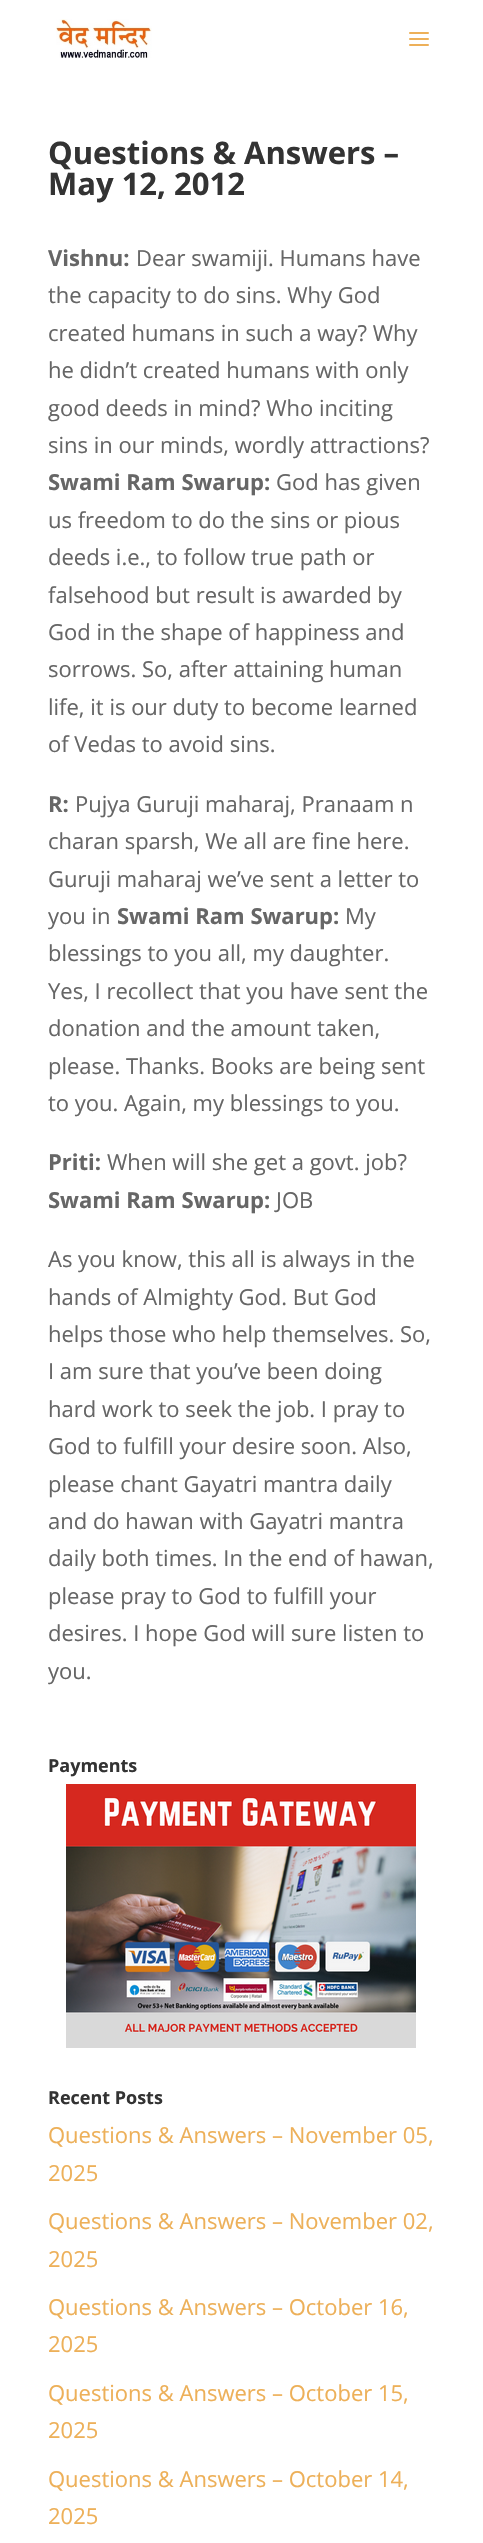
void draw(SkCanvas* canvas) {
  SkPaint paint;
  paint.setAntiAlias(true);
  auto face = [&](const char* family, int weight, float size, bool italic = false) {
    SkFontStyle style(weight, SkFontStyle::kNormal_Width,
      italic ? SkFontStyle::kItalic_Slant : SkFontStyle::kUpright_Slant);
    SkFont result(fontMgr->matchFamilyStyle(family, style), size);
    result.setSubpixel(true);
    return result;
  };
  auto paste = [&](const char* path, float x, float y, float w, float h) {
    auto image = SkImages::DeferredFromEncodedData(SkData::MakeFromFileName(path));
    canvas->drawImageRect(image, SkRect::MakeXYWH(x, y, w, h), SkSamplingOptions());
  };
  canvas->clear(0xffffffff);
  paste("img/1.png", 56, 19, 96, 39);
  paste("img/2.png", 409, 32, 20, 14);
  paste("img/3.png", 66, 1784, 350, 264);
  auto f0 = face("Open Sans", 700, 31);
  paint.setColor(0xff333333);
  canvas->drawString("Questions & Answers –", 48, 164, f0, paint);
  canvas->drawString("May 12, 2012", 48, 195, f0, paint);
  auto f1 = face("Open Sans", 700, 22);
  paint.setColor(0xff666666);
  canvas->drawString("Vishnu:", 48, 266, f1, paint);
  auto f2 = face("Open Sans", 400, 22);
  {
    const struct { const char* s; float x, y; } items[] = {
      {"Dear swamiji. Humans have", 136, 266},
      {"the capacity to do sins. Why God", 48, 303},
      {"created humans in such a way? Why", 48, 341},
      {"he didn’t created humans with only", 48, 378},
      {"good deeds in mind? Who inciting", 48, 416},
      {"sins in our minds, wordly attractions?", 48, 453},
    };
    for (auto [s, x, y] : items) {
      canvas->drawString(s, x, y, f2, paint);
    }
  }
  canvas->drawString("Swami Ram Swarup:", 48, 490, f1, paint);
  {
    const struct { const char* s; float x, y; } items[] = {
      {"God has given", 276, 490},
      {"us freedom to do the sins or pious", 48, 528},
      {"deeds i.e., to follow true path or", 48, 565},
      {"falsehood but result is awarded by", 48, 603},
      {"God in the shape of happiness and", 48, 640},
      {"sorrows. So, after attaining human", 48, 677},
      {"life, it is our duty to become learned", 48, 715},
      {"of Vedas to avoid sins.", 48, 752},
    };
    for (auto [s, x, y] : items) {
      canvas->drawString(s, x, y, f2, paint);
    }
  }
  canvas->drawString("R:", 48, 812, f1, paint);
  {
    const struct { const char* s; float x, y; } items[] = {
      {"Pujya Guruji maharaj, Pranaam n", 75, 812},
      {"charan sparsh, We all are fine here.", 48, 849},
      {"Guruji maharaj we’ve sent a letter to", 48, 887},
      {"you in", 48, 924},
    };
    for (auto [s, x, y] : items) {
      canvas->drawString(s, x, y, f2, paint);
    }
  }
  canvas->drawString("Swami Ram Swarup:", 117, 924, f1, paint);
  {
    const struct { const char* s; float x, y; } items[] = {
      {"My", 345, 924},
      {"blessings to you all, my daughter.", 48, 961},
      {"Yes, I recollect that you have sent the", 48, 999},
      {"donation and the amount taken,", 48, 1036},
      {"please. Thanks. Books are being sent", 48, 1074},
      {"to you. Again, my blessings to you.", 48, 1111},
    };
    for (auto [s, x, y] : items) {
      canvas->drawString(s, x, y, f2, paint);
    }
  }
  canvas->drawString("Priti:", 48, 1170, f1, paint);
  canvas->drawString("When will she get a govt. job?", 107, 1170, f2, paint);
  canvas->drawString("Swami Ram Swarup:", 48, 1208, f1, paint);
  {
    const struct { const char* s; float x, y; } items[] = {
      {"JOB", 276, 1208},
      {"As you know, this all is always in the", 48, 1267},
      {"hands of Almighty God. But God", 48, 1305},
      {"helps those who help themselves. So,", 48, 1342},
      {"I am sure that you’ve been doing", 48, 1379},
      {"hard work to seek the job. I pray to", 48, 1417},
      {"God to fulfill your desire soon. Also,", 48, 1454},
      {"please chant Gayatri mantra daily", 48, 1492},
      {"and do hawan with Gayatri mantra", 48, 1529},
      {"daily both times. In the end of hawan,", 48, 1566},
      {"please pray to God to fulfill your", 48, 1604},
      {"desires. I hope God will sure listen to", 48, 1641},
      {"you.", 48, 1679},
    };
    for (auto [s, x, y] : items) {
      canvas->drawString(s, x, y, f2, paint);
    }
  }
  auto f3 = face("Open Sans", 700, 18);
  paint.setColor(0xff333333);
  canvas->drawString("Payments", 48, 1772, f3, paint);
  canvas->drawString("Recent Posts", 48, 2104, f3, paint);
  paint.setColor(0xffedb059);
  {
    const struct { const char* s; float x, y; } items[] = {
      {"Questions & Answers – November 05,", 48, 2143},
      {"2025", 48, 2181},
      {"Questions & Answers – November 02,", 48, 2229},
      {"2025", 48, 2267},
      {"Questions & Answers – October 16,", 48, 2315},
      {"2025", 48, 2352},
      {"Questions & Answers – October 15,", 48, 2401},
      {"2025", 48, 2438},
      {"Questions & Answers – October 14,", 48, 2487},
      {"2025", 48, 2524},
    };
    for (auto [s, x, y] : items) {
      canvas->drawString(s, x, y, f2, paint);
    }
  }
}
